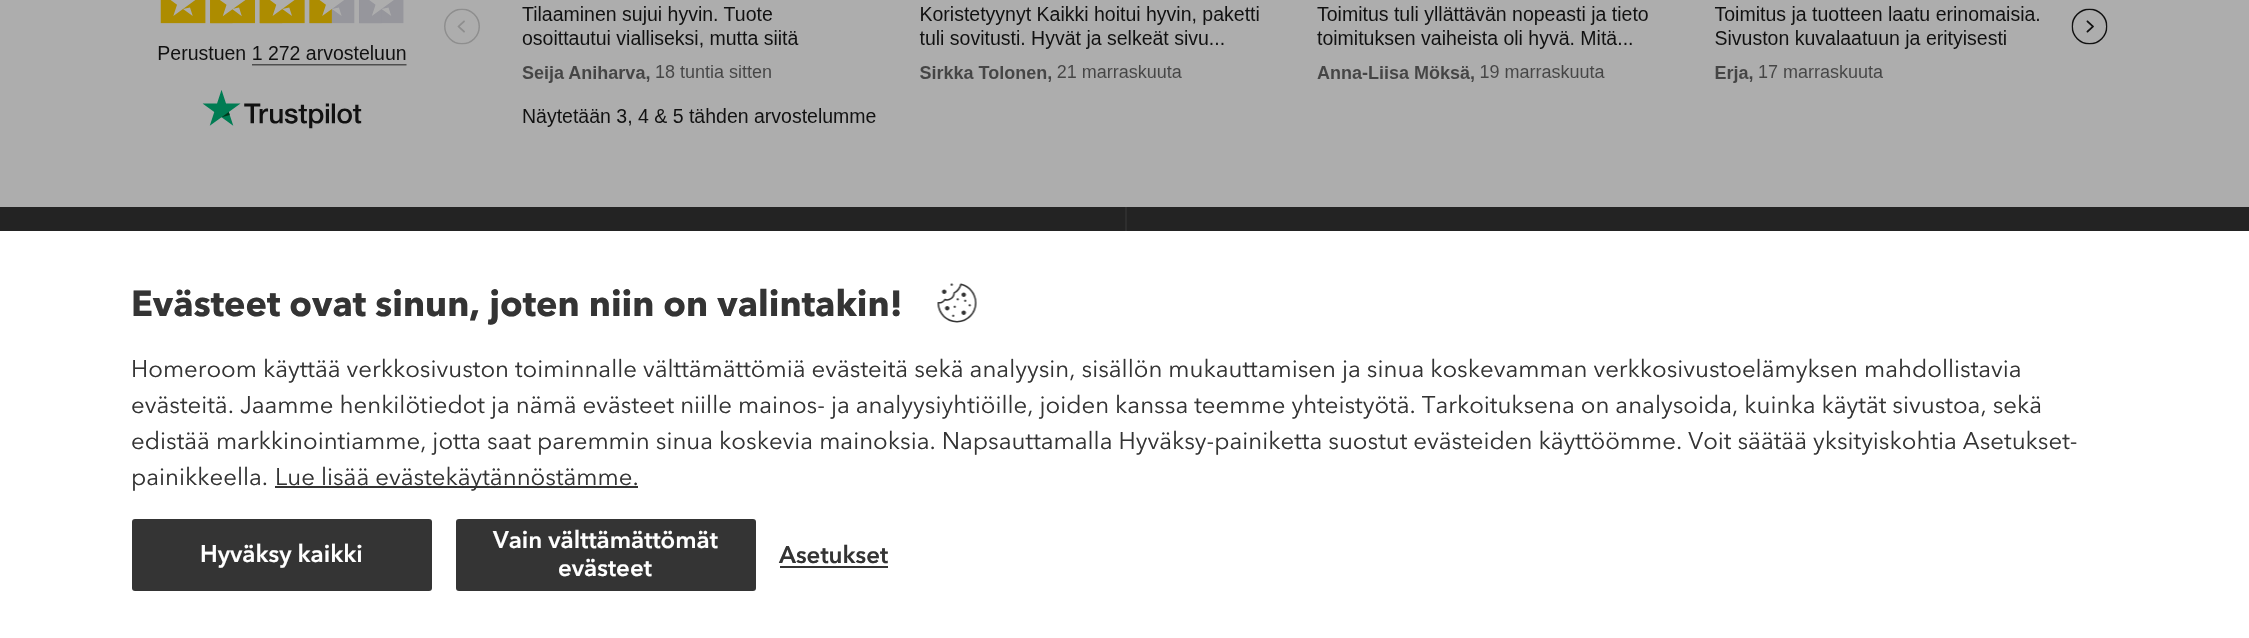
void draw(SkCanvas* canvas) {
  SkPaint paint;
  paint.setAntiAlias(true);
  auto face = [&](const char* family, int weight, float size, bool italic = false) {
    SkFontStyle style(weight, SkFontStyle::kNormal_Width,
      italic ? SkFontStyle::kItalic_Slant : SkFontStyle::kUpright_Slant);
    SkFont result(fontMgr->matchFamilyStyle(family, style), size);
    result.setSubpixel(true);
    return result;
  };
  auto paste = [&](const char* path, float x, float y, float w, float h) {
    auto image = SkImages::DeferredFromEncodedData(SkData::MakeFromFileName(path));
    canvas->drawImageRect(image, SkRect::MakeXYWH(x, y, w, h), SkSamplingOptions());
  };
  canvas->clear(0xffadadad);
  paste("img/1.png", 158, 0, 1950, 129);
  {
    const struct { float x, y, w, h; SkColor color; } items[] = {
      {0, 207, 2249, 24, 0xff232323},
      {1125, 207, 2, 24, 0xff2e2e2e},
      {0, 231, 2249, 407, 0xffffffff},
    };
    for (auto [x, y, w, h, color] : items) {
      paint.setColor(color);
      canvas->drawRect(SkRect::MakeXYWH(x, y, w, h), paint);
    }
  }
  paste("img/2.png", 937, 283, 40, 40);
  paint.setColor(0xff343434);
  canvas->drawRect(SkRect::MakeXYWH(275, 486, 363, 2), paint);
  canvas->drawRoundRect(SkRect::MakeXYWH(132, 519, 300, 72), 3, 3, paint);
  canvas->drawRoundRect(SkRect::MakeXYWH(456, 519, 300, 72), 3, 3, paint);
  canvas->drawRect(SkRect::MakeXYWH(780, 566, 108, 2), paint);
  auto f0 = face("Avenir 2", 700, 36);
  canvas->drawString("Evästeet ovat sinun, joten niin on valintakin!", 131, 316, f0, paint);
  auto f1 = face("Avenir", 400, 24);
  {
    const struct { const char* s; float x, y; } items[] = {
      {"Homeroom käyttää verkkosivuston toiminnalle välttämättömiä evästeitä sekä analyysin, sisällön mukauttamisen ja sinua koskevamman verkkosivustoelämyksen mahdollistavia", 131, 377},
      {"evästeitä. Jaamme henkilötiedot ja nämä evästeet niille mainos- ja analyysiyhtiöille, joiden kanssa teemme yhteistyötä. Tarkoituksena on analysoida, kuinka käytät sivustoa, sekä", 131, 413},
      {"edistää markkinointiamme, jotta saat paremmin sinua koskevia mainoksia. Napsauttamalla Hyväksy-painiketta suostut evästeiden käyttöömme. Voit säätää yksityiskohtia Asetukset-", 131, 449},
      {"painikkeella.", 131, 485},
      {"Lue lisää evästekäytännöstämme.", 275, 485},
    };
    for (auto [s, x, y] : items) {
      canvas->drawString(s, x, y, f1, paint);
    }
  }
  auto f2 = face("Avenir", 700, 24);
  paint.setColor(0xffffffff);
  {
    const struct { const char* s; float x, y; } items[] = {
      {"Hyväksy kaikki", 200, 562},
      {"Vain välttämättömät", 493, 548},
      {"evästeet", 558, 576},
    };
    for (auto [s, x, y] : items) {
      canvas->drawString(s, x, y, f2, paint);
    }
  }
  paint.setColor(0xff343434);
  canvas->drawString("Asetukset", 779, 563, f2, paint);
}
